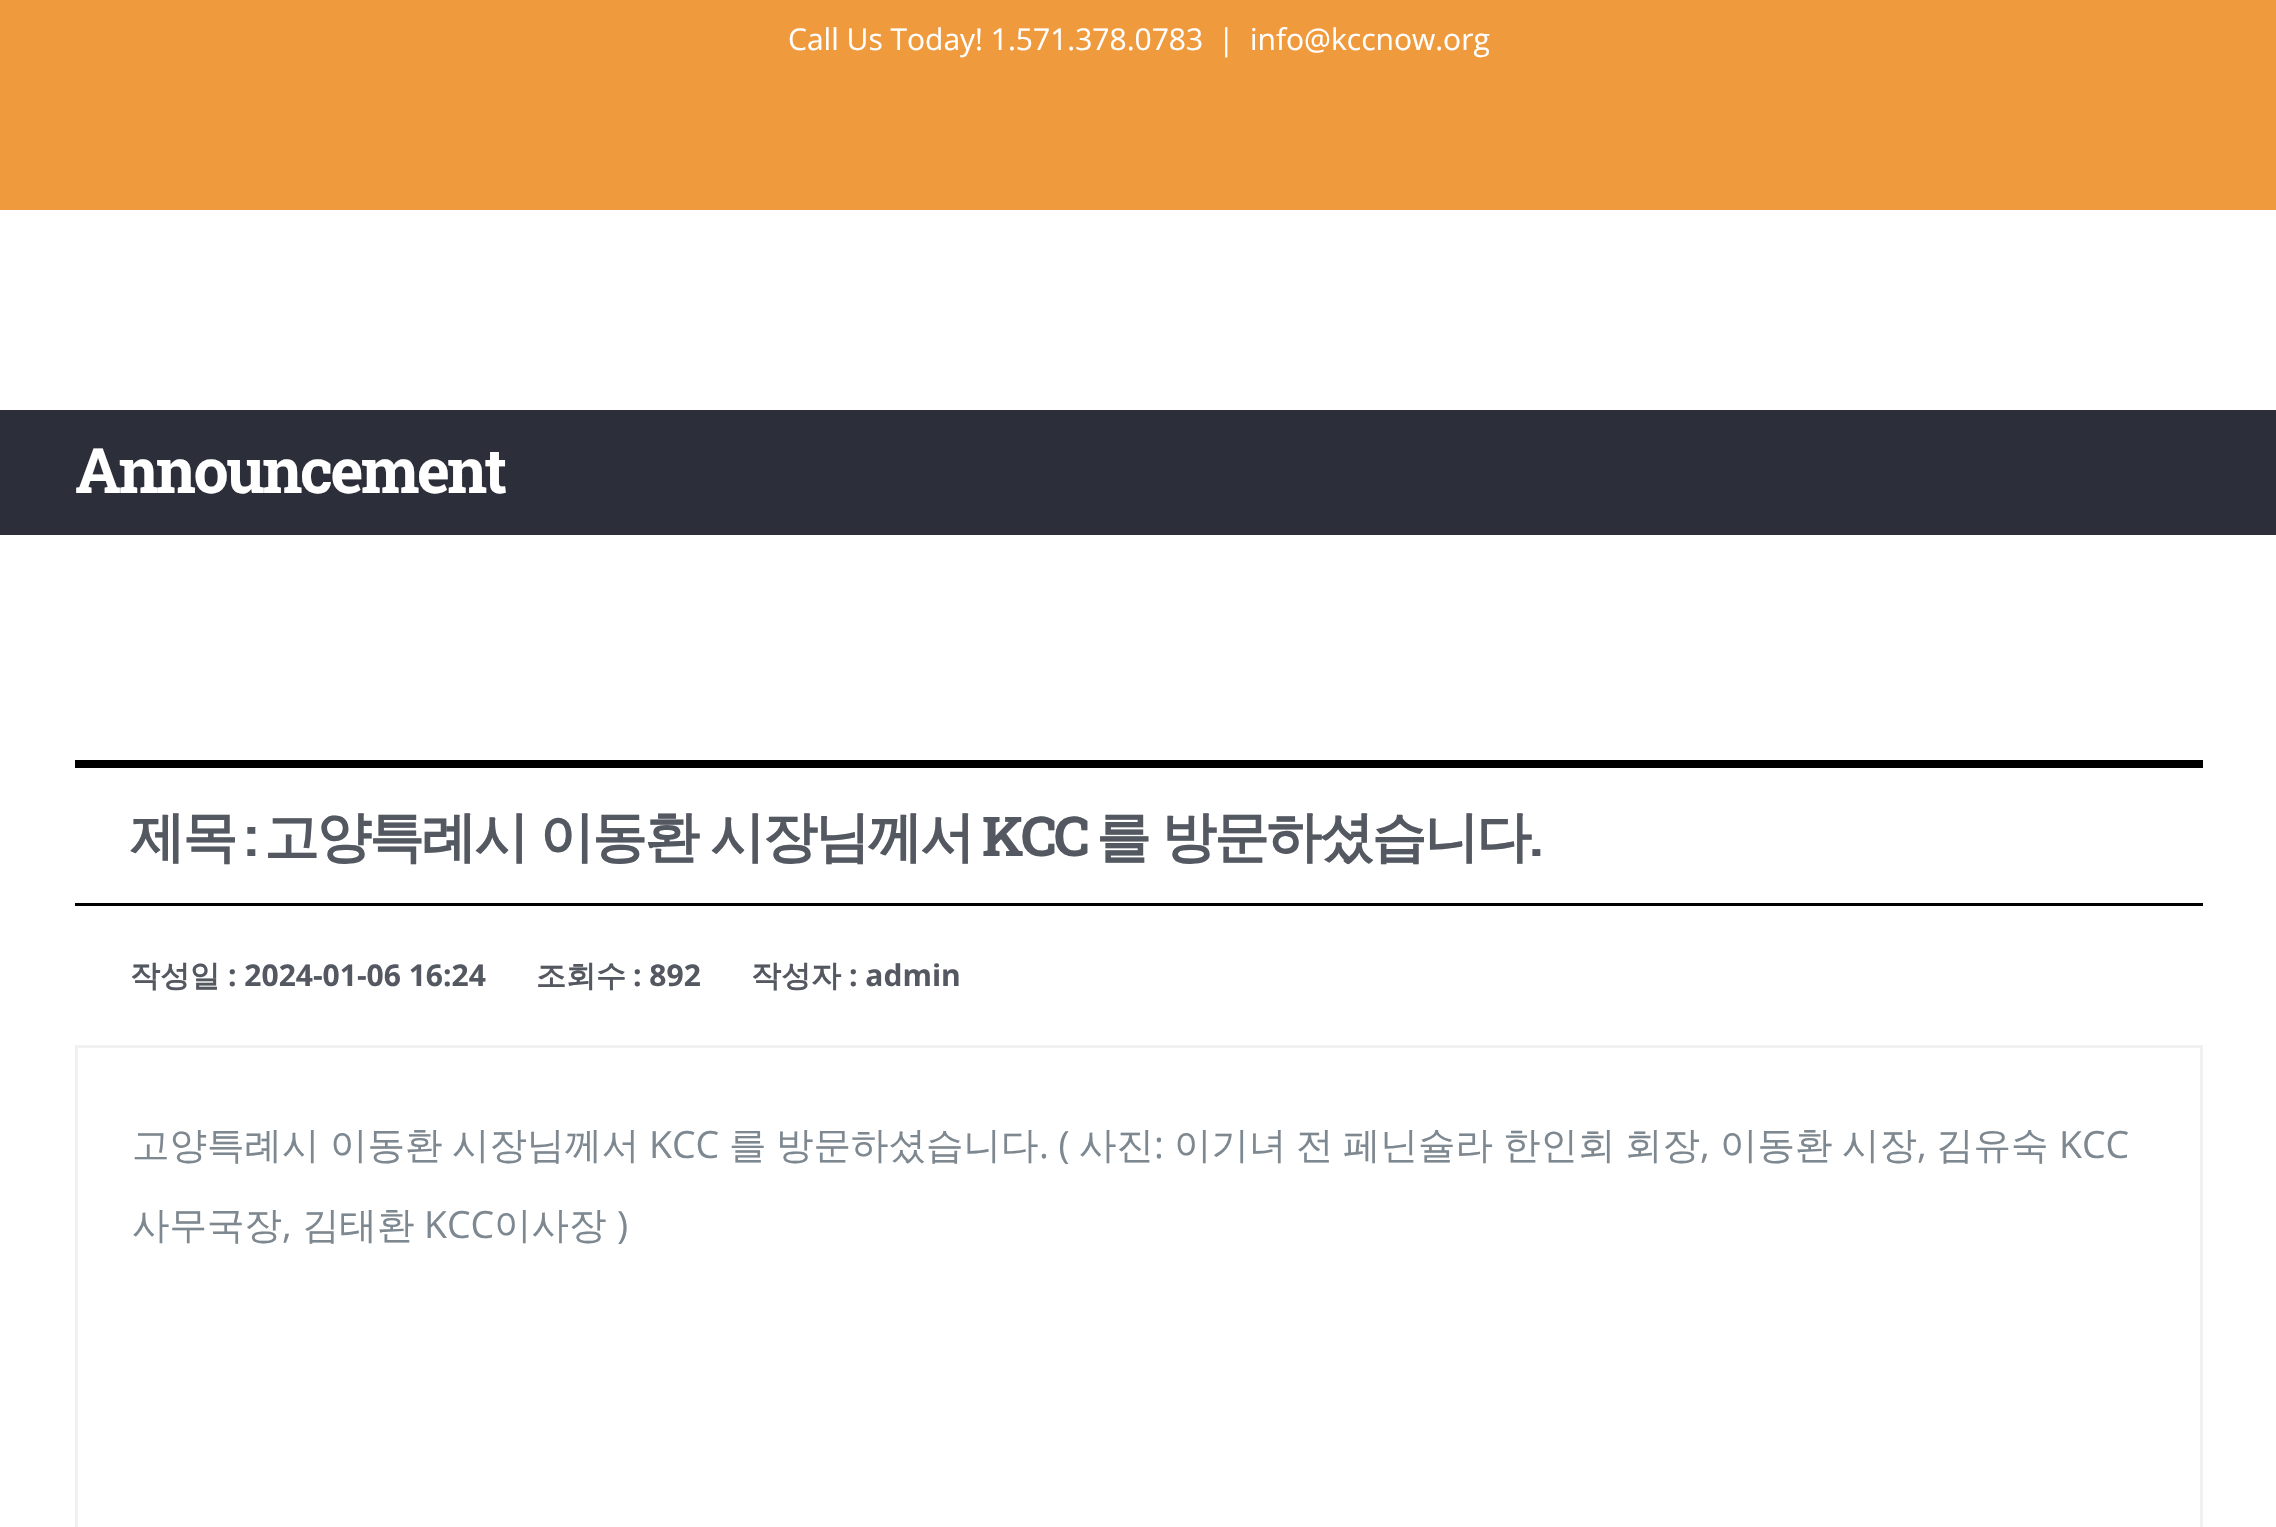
void draw(SkCanvas* canvas) {
  SkPaint paint;
  paint.setAntiAlias(true);
  auto face = [&](const char* family, int weight, float size, bool italic = false) {
    SkFontStyle style(weight, SkFontStyle::kNormal_Width,
      italic ? SkFontStyle::kItalic_Slant : SkFontStyle::kUpright_Slant);
    SkFont result(fontMgr->matchFamilyStyle(family, style), size);
    result.setSubpixel(true);
    return result;
  };
  auto writeSpaced = [&](const char* s, float x, float y, const SkFont& font, const SkPaint& ink, float letter, float word) {
    std::vector<SkGlyphID> glyphs(font.countText(s, strlen(s), SkTextEncoding::kUTF8));
    std::vector<float> xs(glyphs.size());
    font.textToGlyphs(s, strlen(s), SkTextEncoding::kUTF8, glyphs);
    font.getXPos(glyphs, xs, x);
    float extra = 0;
    for (size_t i = 0; i < glyphs.size(); i++) {
      xs[i] += extra;
      extra += letter + word * (glyphs[i] == font.unicharToGlyph(' '));
    }
    canvas->drawTextBlob(SkTextBlob::MakeFromPosHGlyphs(glyphs, xs, y, font), 0, 0, ink);
  };
  canvas->clear(0xffffffff);
  {
    const struct { float x, y, w, h; SkColor color; } items[] = {
      {0, 0, 2276, 210, 0xfff09a3e},
      {0, 410, 2276, 125, 0xff2c2f39},
      {75, 760, 2128, 8, 0xff000000},
      {75, 903, 2128, 3, 0xff000000},
    };
    for (auto [x, y, w, h, color] : items) {
      paint.setColor(color);
      canvas->drawRect(SkRect::MakeXYWH(x, y, w, h), paint);
    }
  }
  paint.setStroke(true);
  paint.setStrokeWidth(3);
  paint.setColor(0xfff1f1f1);
  canvas->drawRect(SkRect::MakeXYWH(76.5f, 1046.5f, 2125, 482), paint);
  auto f0 = face("Open Sans", 400, 30);
  paint.setStroke(false);
  paint.setColor(0xffffffff);
  {
    const struct { const char* s; float x, y; } items[] = {
      {"Call Us Today! 1.571.378.0783", 788, 50},
      {"|", 1218, 50},
      {"info@kccnow.org", 1250, 50},
    };
    for (auto [s, x, y] : items) {
      canvas->drawString(s, x, y, f0, paint);
    }
  }
  auto f1 = face("Roboto Slab", 700, 62.5f);
  writeSpaced("Announcement", 75, 493, f1, paint, -2.5f, 0);
  auto f2 = face("WenQuanYi Zen Hei", 700, 55);
  paint.setColor(0xff545861);
  writeSpaced("제목", 130, 856, f2, paint, -2.5f, 0);
  auto f3 = face("Roboto Slab", 700, 55);
  writeSpaced(":", 245, 856, f3, paint, -2.5f, 0);
  writeSpaced("고양특례시 이동환 시장님께서", 264, 856, f2, paint, -2.5f, -1);
  writeSpaced("KCC", 982, 856, f3, paint, -2.5f, 0);
  writeSpaced("를 방문하셨습니다", 1096, 856, f2, paint, -2.5f, -1);
  writeSpaced(".", 1529, 856, f3, paint, -2.5f, 0);
  auto f4 = face("WenQuanYi Zen Hei", 700, 30);
  canvas->drawString("작성일", 130, 986, f4, paint);
  auto f5 = face("Open Sans", 700, 30);
  canvas->drawString(": 2024-01-06 16:24", 228, 986, f5, paint);
  canvas->drawString("조회수", 536, 986, f4, paint);
  canvas->drawString(": 892", 633, 986, f5, paint);
  canvas->drawString("작성자", 751, 986, f4, paint);
  canvas->drawString(": admin", 849, 986, f5, paint);
  auto f6 = face("WenQuanYi Zen Hei", 500, 37.5f);
  paint.setColor(0xff7e8890);
  {
    const struct { const char* s; float x, y; } items[] = {
      {"고양특례시", 132, 1158},
      {"이동환", 330, 1158},
      {"시장님께서", 452, 1158},
    };
    for (auto [s, x, y] : items) {
      canvas->drawString(s, x, y, f6, paint);
    }
  }
  auto f7 = face("Open Sans", 400, 37.5f);
  canvas->drawString("KCC", 649, 1158, f7, paint);
  canvas->drawString("를", 729, 1158, f6, paint);
  canvas->drawString("방문하셨습니다", 776, 1158, f6, paint);
  canvas->drawString(". (", 1039, 1158, f7, paint);
  canvas->drawString("사진", 1079, 1158, f6, paint);
  canvas->drawString(":", 1154, 1158, f7, paint);
  {
    const struct { const char* s; float x, y; } items[] = {
      {"이기녀", 1174, 1158},
      {"전", 1296, 1158},
      {"페닌슐라", 1343, 1158},
      {"한인회", 1503, 1158},
      {"회장", 1625, 1158},
    };
    for (auto [s, x, y] : items) {
      canvas->drawString(s, x, y, f6, paint);
    }
  }
  canvas->drawString(",", 1700, 1158, f7, paint);
  canvas->drawString("이동환", 1720, 1158, f6, paint);
  canvas->drawString("시장", 1842, 1158, f6, paint);
  canvas->drawString(",", 1917, 1158, f7, paint);
  canvas->drawString("김유숙", 1936, 1158, f6, paint);
  canvas->drawString("KCC", 2059, 1158, f7, paint);
  canvas->drawString("사무국장", 132, 1238, f6, paint);
  canvas->drawString(",", 282, 1238, f7, paint);
  canvas->drawString("김태환", 302, 1238, f6, paint);
  canvas->drawString("KCC", 424, 1238, f7, paint);
  canvas->drawString("이사장", 494, 1238, f6, paint);
  canvas->drawString(")", 617, 1238, f7, paint);
}
